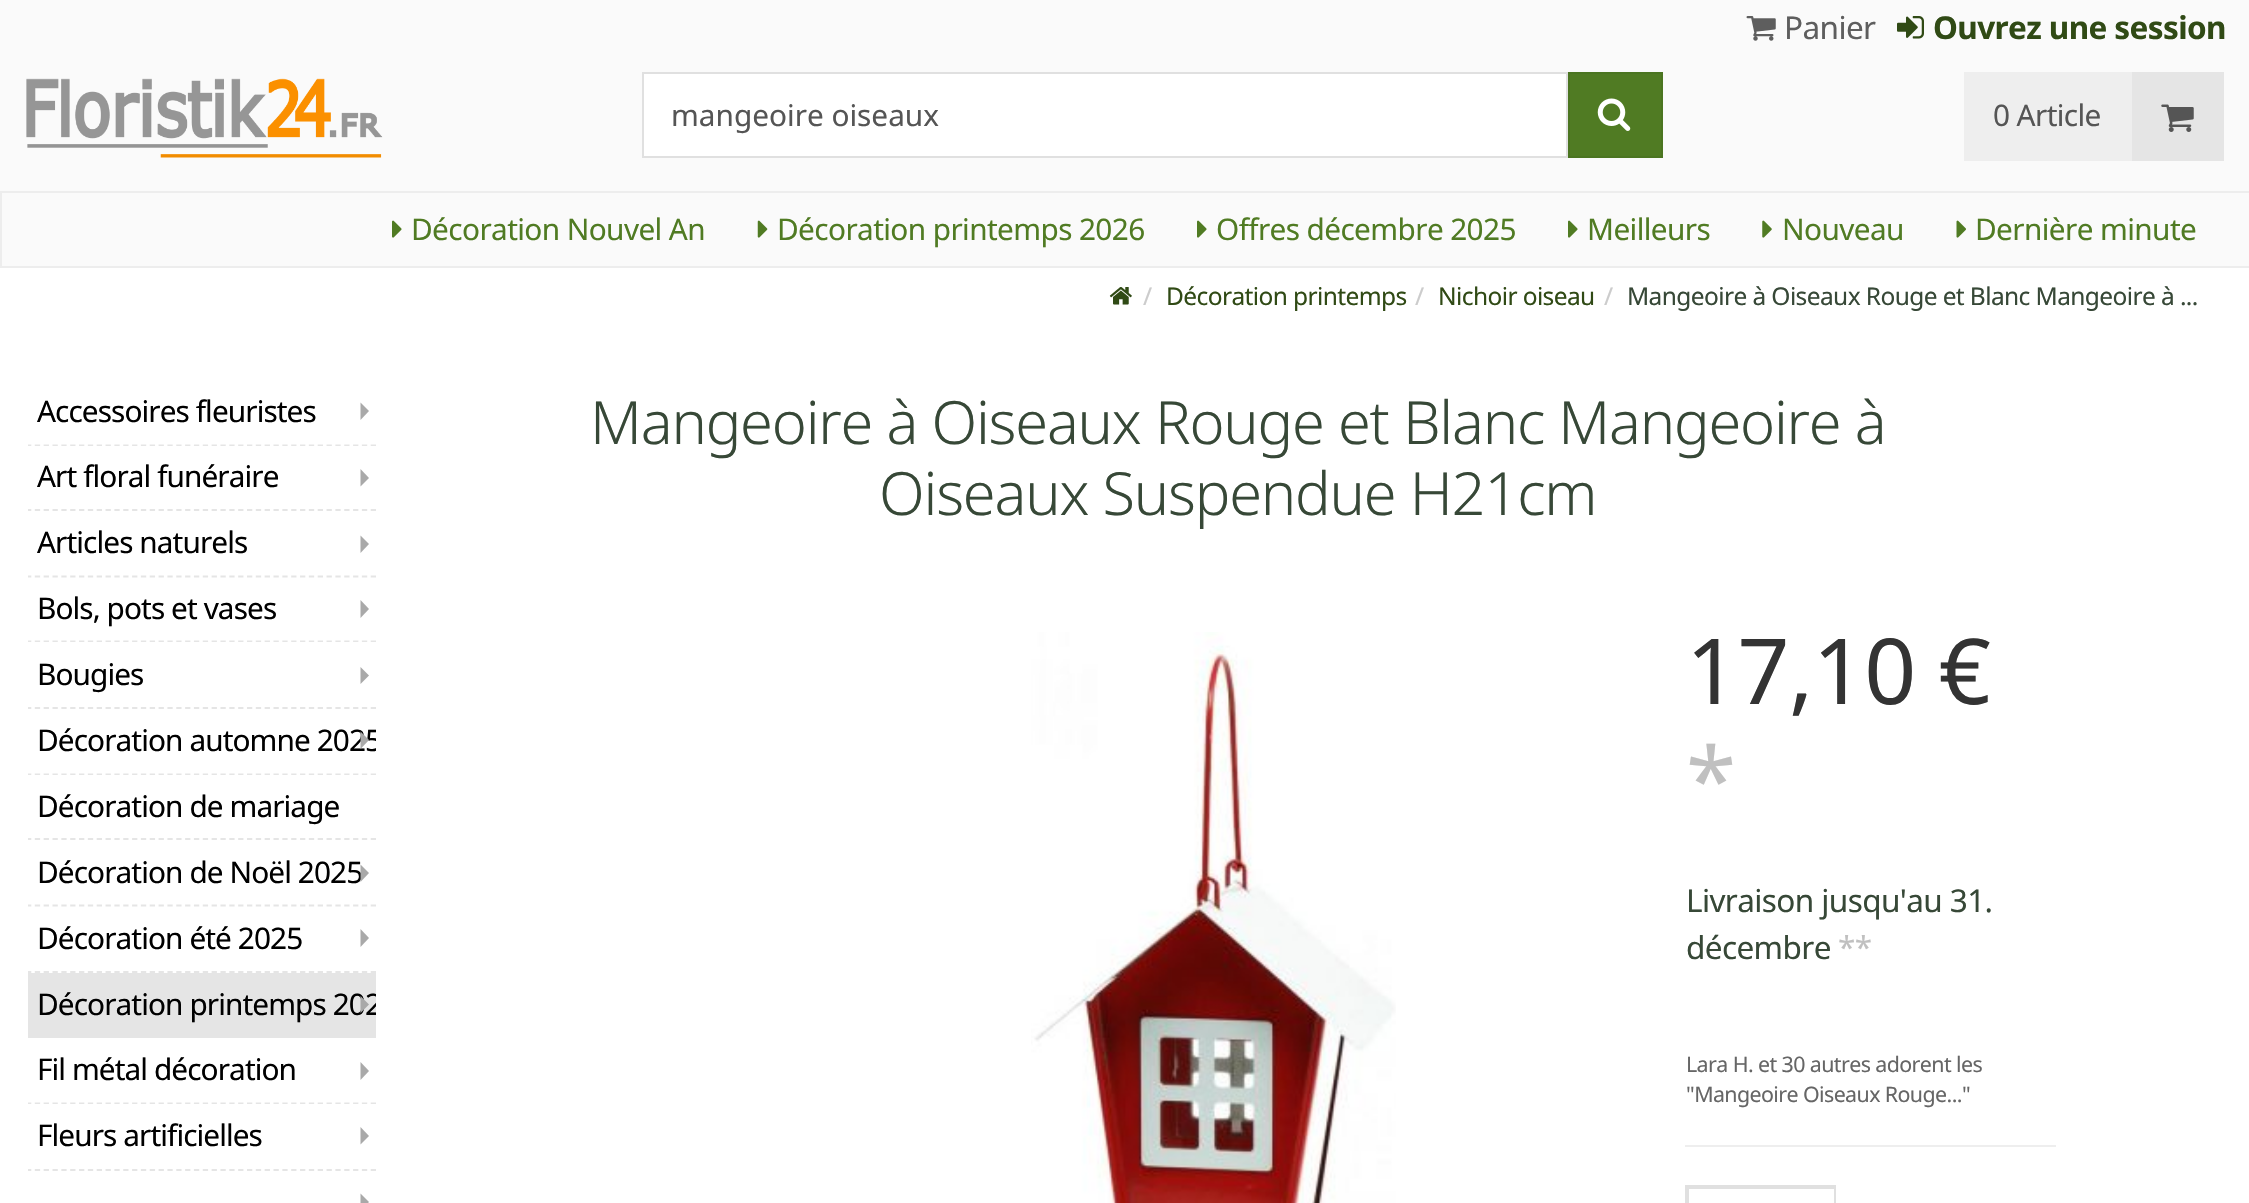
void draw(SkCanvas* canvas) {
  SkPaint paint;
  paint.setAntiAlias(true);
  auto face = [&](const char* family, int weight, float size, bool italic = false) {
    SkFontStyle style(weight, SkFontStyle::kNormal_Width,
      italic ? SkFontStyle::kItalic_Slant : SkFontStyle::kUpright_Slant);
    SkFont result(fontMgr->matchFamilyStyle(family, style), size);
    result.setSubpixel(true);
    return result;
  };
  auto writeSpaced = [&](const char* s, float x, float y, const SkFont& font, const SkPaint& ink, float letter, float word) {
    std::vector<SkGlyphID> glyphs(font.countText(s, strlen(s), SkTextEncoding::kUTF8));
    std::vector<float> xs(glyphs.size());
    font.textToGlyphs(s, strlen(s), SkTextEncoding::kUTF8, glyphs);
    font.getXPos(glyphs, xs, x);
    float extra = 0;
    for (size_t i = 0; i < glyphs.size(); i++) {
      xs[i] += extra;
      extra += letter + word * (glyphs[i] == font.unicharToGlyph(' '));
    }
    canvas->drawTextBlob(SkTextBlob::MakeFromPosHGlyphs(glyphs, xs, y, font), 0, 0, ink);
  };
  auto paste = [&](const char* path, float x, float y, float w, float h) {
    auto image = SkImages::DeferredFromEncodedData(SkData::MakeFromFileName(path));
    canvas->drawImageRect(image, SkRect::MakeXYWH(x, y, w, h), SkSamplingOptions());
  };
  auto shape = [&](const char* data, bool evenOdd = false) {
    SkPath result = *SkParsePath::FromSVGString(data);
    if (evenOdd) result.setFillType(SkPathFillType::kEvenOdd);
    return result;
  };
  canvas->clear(0xffffffff);
  paint.setColor(0xfffafafa);
  canvas->drawRect(SkRect::MakeXYWH(0, 0, 2249, 191), paint);
  paste("img/1.png", 1746, 16, 30, 25);
  paste("img/2.png", 1897, 16, 27, 23);
  paste("img/3.png", 26, 78, 357, 80);
  paint.setColor(0xffffffff);
  canvas->drawRect(SkRect::MakeXYWH(643, 73, 924, 84), paint);
  paint.setStroke(true);
  paint.setStrokeWidth(2);
  paint.setColor(0xffe0e0e0);
  canvas->drawRect(SkRect::MakeXYWH(643, 73, 924, 84), paint);
  paint.setStroke(false);
  paint.setColor(0xff507b23);
  canvas->drawRect(SkRect::MakeXYWH(1569, 73, 93, 84), paint);
  paint.setStroke(true);
  paint.setColor(0xff4b7521);
  canvas->drawRect(SkRect::MakeXYWH(1569, 73, 93, 84), paint);
  paste("img/4.png", 1597, 98, 34, 33);
  paint.setStroke(false);
  paint.setColor(0xffeeeeee);
  canvas->drawRect(SkRect::MakeXYWH(1964, 72, 168, 89), paint);
  paint.setColor(0xffe5e5e5);
  canvas->drawRect(SkRect::MakeXYWH(2132, 72, 92, 89), paint);
  paste("img/5.png", 2161, 104, 33, 28);
  paint.setColor(0xfffafafa);
  canvas->drawRect(SkRect::MakeXYWH(1, 192, 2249, 75), paint);
  paint.setStroke(true);
  paint.setColor(0xffededed);
  canvas->drawRect(SkRect::MakeXYWH(1, 192, 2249, 75), paint);
  paste("img/6.png", 392, 220, 10, 18);
  paste("img/7.png", 757, 220, 11, 18);
  paste("img/6.png", 1197, 220, 10, 18);
  paste("img/6.png", 1568, 220, 10, 18);
  paste("img/8.png", 1762, 220, 10, 18);
  paste("img/9.png", 1956, 220, 10, 18);
  paste("img/10.png", 1109, 287, 23, 18);
  paint.setStrokeWidth(1.8f);
  paint.setColor(0xffe5e5e5);
  paint.setPathEffect(SkDashPathEffect::Make({{5.25f, 3.59f}}, 0));
  canvas->drawPath(shape("M26 445.5H376"), paint);
  paint.setPathEffect(nullptr);
  paint.setStroke(false);
  paint.setColor(0xffffffff);
  canvas->drawRect(SkRect::MakeXYWH(26, 444, 2, 2), paint);
  paint.setColor(0xffa9a9a9);
  canvas->drawPath(shape("M360.5 420V402.5L369 411Z"), paint);
  paint.setColor(0xffffffff);
  canvas->drawRect(SkRect::MakeXYWH(28, 446, 348, 1), paint);
  paint.setStroke(true);
  paint.setColor(0xffe5e5e5);
  paint.setPathEffect(SkDashPathEffect::Make({{5.25f, 3.59f}}, 0));
  canvas->drawPath(shape("M26 510H376"), paint);
  paint.setPathEffect(nullptr);
  paint.setStroke(false);
  paint.setColor(0xffffffff);
  canvas->drawRect(SkRect::MakeXYWH(26, 446, 2, 65), paint);
  paint.setColor(0xffa9a9a9);
  canvas->drawPath(shape("M360.5 486.5V469L369 478Z"), paint);
  paint.setStroke(true);
  paint.setColor(0xffe5e5e5);
  paint.setPathEffect(SkDashPathEffect::Make({{5.25f, 3.59f}}, 0));
  canvas->drawPath(shape("M26 576.5H376"), paint);
  paint.setPathEffect(nullptr);
  paint.setStroke(false);
  paint.setColor(0xffffffff);
  canvas->drawRect(SkRect::MakeXYWH(26, 575, 2, 3), paint);
  paint.setColor(0xffa9a9a9);
  canvas->drawPath(shape("M360.5 553V535.5L369 544Z"), paint);
  paint.setStroke(true);
  paint.setColor(0xffe5e5e5);
  paint.setPathEffect(SkDashPathEffect::Make({{5.25f, 3.59f}}, 0));
  canvas->drawPath(shape("M26 641.5H376"), paint);
  paint.setPathEffect(nullptr);
  paint.setStroke(false);
  paint.setColor(0xffffffff);
  canvas->drawRect(SkRect::MakeXYWH(26, 640, 2, 2), paint);
  paint.setColor(0xffa9a9a9);
  canvas->drawPath(shape("M360.5 618V600L369 609Z"), paint);
  paint.setColor(0xffffffff);
  canvas->drawRect(SkRect::MakeXYWH(28, 642, 348, 1), paint);
  paint.setStroke(true);
  paint.setColor(0xffe5e5e5);
  paint.setPathEffect(SkDashPathEffect::Make({{5.25f, 3.59f}}, 0));
  canvas->drawPath(shape("M26 708H376"), paint);
  paint.setPathEffect(nullptr);
  paint.setStroke(false);
  paint.setColor(0xffffffff);
  canvas->drawRect(SkRect::MakeXYWH(26, 642, 2, 67), paint);
  paint.setColor(0xffa9a9a9);
  canvas->drawPath(shape("M360.5 684V667L369 675.5Z"), paint);
  paint.setStroke(true);
  paint.setColor(0xffe5e5e5);
  paint.setPathEffect(SkDashPathEffect::Make({{5.25f, 3.59f}}, 0));
  canvas->drawPath(shape("M26 774.5H376"), paint);
  paint.setPathEffect(nullptr);
  paint.setStroke(false);
  paint.setColor(0xffffffff);
  canvas->drawRect(SkRect::MakeXYWH(26, 773, 2, 2), paint);
  canvas->drawRect(SkRect::MakeXYWH(28, 775, 348, 1), paint);
  paint.setStroke(true);
  paint.setColor(0xffe5e5e5);
  paint.setPathEffect(SkDashPathEffect::Make({{5.25f, 3.59f}}, 0));
  canvas->drawPath(shape("M26 839H376"), paint);
  paint.setPathEffect(nullptr);
  paint.setStroke(false);
  paint.setColor(0xffffffff);
  canvas->drawRect(SkRect::MakeXYWH(26, 775, 2, 65), paint);
  paint.setStroke(true);
  paint.setColor(0xffe5e5e5);
  paint.setPathEffect(SkDashPathEffect::Make({{5.25f, 3.59f}}, 0));
  canvas->drawPath(shape("M26 905.5H376"), paint);
  paint.setPathEffect(nullptr);
  paint.setStroke(false);
  paint.setColor(0xffffffff);
  canvas->drawRect(SkRect::MakeXYWH(26, 904, 2, 3), paint);
  paint.setStroke(true);
  paint.setColor(0xffe5e5e5);
  paint.setPathEffect(SkDashPathEffect::Make({{5.25f, 3.59f}}, 0));
  canvas->drawPath(shape("M26 972H376"), paint);
  paint.setPathEffect(nullptr);
  paint.setStroke(false);
  paint.setColor(0xffffffff);
  canvas->drawRect(SkRect::MakeXYWH(26, 971, 2, 2), paint);
  paint.setColor(0xffa9a9a9);
  canvas->drawPath(shape("M360.5 947V929L369 938Z"), paint);
  paint.setColor(0xffe5e5e5);
  canvas->drawRect(SkRect::MakeXYWH(28, 973, 348, 65), paint);
  paint.setStroke(true);
  paint.setPathEffect(SkDashPathEffect::Make({{5.25f, 3.59f}}, 0));
  canvas->drawPath(shape("M26 1103.5H376"), paint);
  paint.setPathEffect(nullptr);
  paint.setStroke(false);
  paint.setColor(0xffffffff);
  canvas->drawRect(SkRect::MakeXYWH(26, 1102, 2, 2), paint);
  paint.setColor(0xffa9a9a9);
  canvas->drawPath(shape("M360.5 1080V1062L369 1071Z"), paint);
  paint.setColor(0xffffffff);
  canvas->drawRect(SkRect::MakeXYWH(28, 1104, 348, 1), paint);
  paint.setStroke(true);
  paint.setColor(0xffe5e5e5);
  paint.setPathEffect(SkDashPathEffect::Make({{5.25f, 3.59f}}, 0));
  canvas->drawPath(shape("M26 1170H376"), paint);
  paint.setPathEffect(nullptr);
  paint.setStroke(false);
  paint.setColor(0xffffffff);
  canvas->drawRect(SkRect::MakeXYWH(26, 1104, 2, 67), paint);
  paint.setColor(0xffa9a9a9);
  canvas->drawPath(shape("M360.5 1144.5V1127L369 1136Z"), paint);
  canvas->drawPath(shape("M360.5 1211V1193.5L369 1202Z"), paint);
  paste("img/11.png", 1031, 632, 365, 571);
  {
    const struct { float x, y, w, h; SkColor color; } items[] = {
      {1685, 1145, 371, 2, 0xffeeeeee},
      {1685, 1185, 151, 2, 0xffe0e0e0},
      {1685, 1185, 2, 18, 0xffe0e0e0},
    };
    for (auto [x, y, w, h, color] : items) {
      paint.setColor(color);
      canvas->drawRect(SkRect::MakeXYWH(x, y, w, h), paint);
    }
  }
  paint.setStroke(true);
  paint.setStrokeWidth(2);
  canvas->drawRect(SkRect::MakeXYWH(1688, 1188, 147, 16), paint);
  auto f0 = face("Noto Sans", 400, 31.5f);
  paint.setStroke(false);
  paint.setColor(0xff5e5e5e);
  writeSpaced("Panier", 1784, 39, f0, paint, -0.6f, 0);
  auto f1 = face("Noto Sans", 700, 31.5f);
  paint.setColor(0xff304a15);
  writeSpaced("Ouvrez une session", 1933, 39, f1, paint, -0.6f, 0);
  auto f2 = face("Noto Sans", 400, 29.75f);
  paint.setColor(0xff555555);
  canvas->drawString("mangeoire oiseaux", 671, 126, f2, paint);
  writeSpaced("0 Article", 1993, 126, f2, paint, -0.6f, 0);
  paint.setColor(0xff507b23);
  {
    const struct { const char* s; float x, y; } items[] = {
      {"Décoration Nouvel An", 411, 240},
      {"Décoration printemps 2026", 777, 240},
      {"Offres décembre 2025", 1216, 240},
      {"Meilleurs", 1587, 240},
      {"Nouveau", 1782, 240},
      {"Dernière minute", 1975, 240},
    };
    for (auto [s, x, y] : items) {
      writeSpaced(s, x, y, f2, paint, -0.6f, 0);
    }
  }
  auto f3 = face("Noto Sans", 400, 24.5f);
  paint.setColor(0xffcccccc);
  writeSpaced("/", 1143, 305, f3, paint, -0.6f, 0);
  paint.setColor(0xff304a15);
  writeSpaced("Décoration printemps", 1166, 305, f3, paint, -0.6f, 0);
  paint.setColor(0xffcccccc);
  writeSpaced("/", 1415, 305, f3, paint, -0.6f, 0);
  paint.setColor(0xff304a15);
  writeSpaced("Nichoir oiseau", 1438, 305, f3, paint, -0.6f, 0);
  paint.setColor(0xffcccccc);
  writeSpaced("/", 1604, 305, f3, paint, -0.6f, 0);
  paint.setColor(0xff374837);
  writeSpaced("Mangeoire à Oiseaux Rouge et Blanc Mangeoire à ...", 1627, 305, f3, paint, -0.6f, 0);
  paint.setColor(0xff000000);
  {
    const struct { const char* s; float x, y; } items[] = {
      {"Accessoires fleuristes", 37, 422},
      {"Art floral funéraire", 37, 487},
      {"Articles naturels", 37, 553},
      {"Bols, pots et vases", 37, 619},
      {"Bougies", 37, 685},
    };
    for (auto [s, x, y] : items) {
      writeSpaced(s, x, y, f2, paint, -0.9f, 0);
    }
  }
  canvas->save();
  canvas->clipRect(SkRect::MakeXYWH(28, 709, 348, 65));
  writeSpaced("Décoration automne 2025", 37, 751, f2, paint, -0.9f, 0);
  canvas->restore();
  paint.setColor(0xffa9a9a9);
  canvas->drawPath(shape("M360.5 749V731.5L369 740Z"), paint);
  paint.setColor(0xff000000);
  writeSpaced("Décoration de mariage", 37, 817, f2, paint, -0.9f, 0);
  writeSpaced("Décoration de Noël 2025", 37, 883, f2, paint, -0.9f, 0);
  paint.setColor(0xffa9a9a9);
  canvas->drawPath(shape("M360.5 882V864.5L369 873Z"), paint);
  paint.setColor(0xff000000);
  writeSpaced("Décoration été 2025", 37, 949, f2, paint, -0.9f, 0);
  canvas->save();
  canvas->clipRect(SkRect::MakeXYWH(28, 973, 348, 63));
  writeSpaced("Décoration printemps 202", 37, 1015, f2, paint, -0.9f, 0);
  canvas->restore();
  paint.setColor(0xffa9a9a9);
  canvas->drawPath(shape("M360.5 1013V996L369 1004.5Z"), paint);
  paint.setColor(0xff000000);
  writeSpaced("Fil métal décoration", 37, 1080, f2, paint, -0.9f, 0);
  writeSpaced("Fleurs artificielles", 37, 1146, f2, paint, -0.9f, 0);
  auto f4 = face("Noto Sans", 300, 59.5f);
  paint.setColor(0xff374837);
  writeSpaced("Mangeoire à Oiseaux Rouge et Blanc Mangeoire à", 590, 444, f4, paint, -1.2f, 0);
  writeSpaced("Oiseaux Suspendue H21cm", 879, 515, f4, paint, -1.2f, 0);
  auto f5 = face("Noto Sans", 400, 91);
  paint.setColor(0xff333333);
  writeSpaced("17,10 €", 1686, 704, f5, paint, -0.6f, 0);
  paint.setColor(0xffc0c0c0);
  writeSpaced("*", 1686, 813, f5, paint, -0.6f, 0);
  paint.setColor(0xff374837);
  writeSpaced("Livraison jusqu'au 31.", 1686, 912, f0, paint, -0.6f, 0);
  writeSpaced("décembre", 1686, 959, f0, paint, -0.6f, 0);
  paint.setColor(0xffc0c0c0);
  writeSpaced("**", 1838, 959, f0, paint, -0.6f, 0);
  auto f6 = face("Noto Sans", 400, 21.4f);
  paint.setColor(0xff666666);
  writeSpaced("Lara H. et 30 autres adorent les", 1686, 1072, f6, paint, -0.6f, 0);
  writeSpaced("\"Mangeoire Oiseaux Rouge...\"", 1686, 1102, f6, paint, -0.6f, 0);
}
